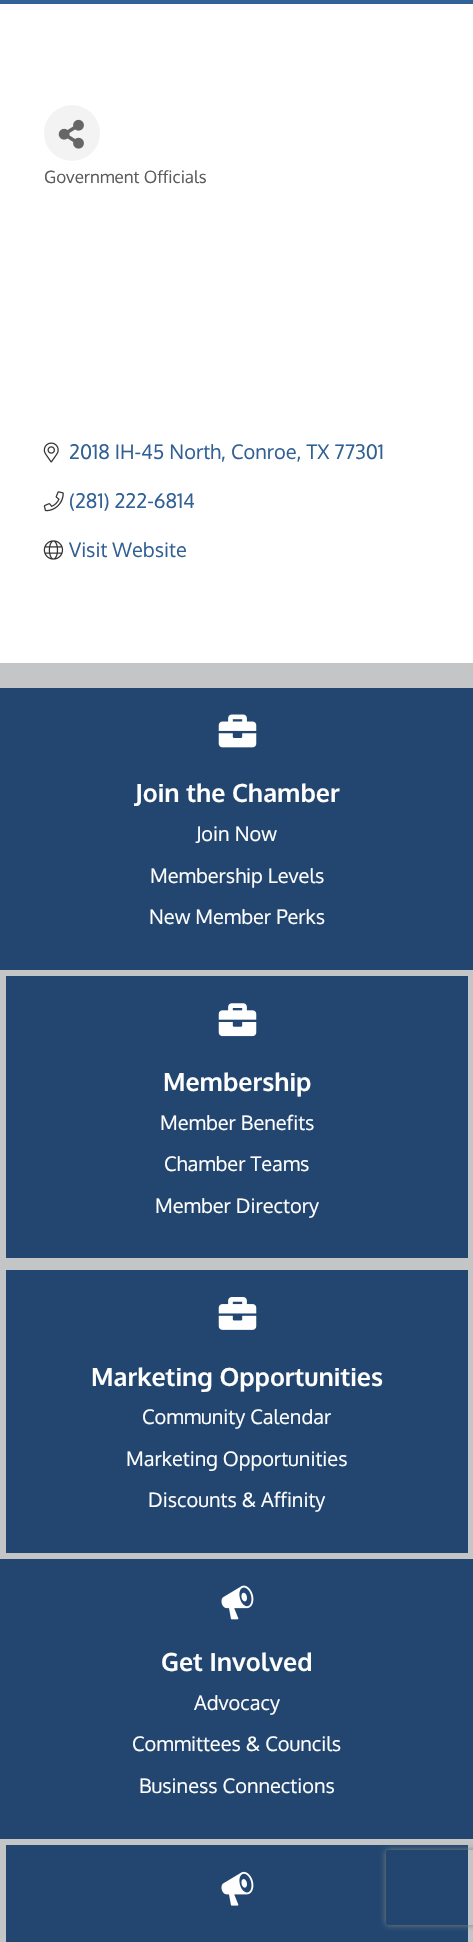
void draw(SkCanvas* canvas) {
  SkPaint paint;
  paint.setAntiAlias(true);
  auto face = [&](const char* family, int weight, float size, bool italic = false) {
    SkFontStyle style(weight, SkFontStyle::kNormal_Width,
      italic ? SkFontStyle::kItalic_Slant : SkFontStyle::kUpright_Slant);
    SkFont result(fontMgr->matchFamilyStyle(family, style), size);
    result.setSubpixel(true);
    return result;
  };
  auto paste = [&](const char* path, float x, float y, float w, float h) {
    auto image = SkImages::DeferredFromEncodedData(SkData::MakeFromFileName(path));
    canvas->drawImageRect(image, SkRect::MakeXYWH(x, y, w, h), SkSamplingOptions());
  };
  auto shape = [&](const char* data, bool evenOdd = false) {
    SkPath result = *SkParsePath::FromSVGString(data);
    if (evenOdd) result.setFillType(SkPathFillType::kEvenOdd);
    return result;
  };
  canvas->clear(0xffffffff);
  paint.setColor(0xff316297);
  canvas->drawRect(SkRect::MakeXYWH(0, 0, 473, 4), paint);
  paint.setColor(0xfff3f3f3);
  canvas->drawCircle(72, 133, 28, paint);
  paste("img/1.png", 58, 119, 26, 30);
  paste("img/2.png", 43, 442, 16, 21);
  paste("img/3.png", 43, 491, 21, 21);
  paste("img/4.png", 43, 540, 21, 20);
  paint.setColor(0xffc3c5c6);
  canvas->drawRect(SkRect::MakeXYWH(0, 663, 473, 1279), paint);
  paint.setColor(0xff224670);
  canvas->drawRect(SkRect::MakeXYWH(0, 688, 473, 282), paint);
  paste("img/5.png", 218, 714, 39, 34);
  canvas->drawRect(SkRect::MakeXYWH(6, 976, 462, 282), paint);
  paste("img/6.png", 218, 1003, 39, 34);
  canvas->drawRect(SkRect::MakeXYWH(6, 1270, 462, 283), paint);
  paste("img/7.png", 218, 1297, 39, 33);
  canvas->drawRect(SkRect::MakeXYWH(0, 1559, 473, 280), paint);
  paste("img/8.png", 221, 1585, 33, 35);
  canvas->drawRect(SkRect::MakeXYWH(6, 1845, 462, 97), paint);
  paste("img/9.png", 221, 1871, 33, 35);
  canvas->save();
  canvas->clipPath(shape("M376 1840H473V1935H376ZM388.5 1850H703.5C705 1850 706 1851 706 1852.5V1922.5C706 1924 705 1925 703.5 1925H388.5C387 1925 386 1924 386 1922.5V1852.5C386 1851 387 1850 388.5 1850Z", true), true);
  paint.setColor(0xff808080);
  paint.setMaskFilter(SkMaskFilter::MakeBlur(kNormal_SkBlurStyle, 3));
  canvas->drawRoundRect(SkRect::MakeXYWH(386, 1850, 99, 75), 2.5f, 2.5f, paint);
  paint.setMaskFilter(nullptr);
  canvas->restore();
  auto f0 = face("Oxygen", 400, 17);
  paint.setColor(0xff5c5c5c);
  canvas->drawString("Government Officials", 44, 183, f0, paint);
  auto f1 = face("Oxygen", 400, 20);
  paint.setColor(0xff316094);
  {
    const struct { const char* s; float x, y; } items[] = {
      {"2018 IH-45 North, Conroe, TX 77301", 69, 459},
      {"(281) 222-6814", 69, 508},
      {"Visit Website", 69, 557},
    };
    for (auto [s, x, y] : items) {
      canvas->drawString(s, x, y, f1, paint);
    }
  }
  auto f2 = face("Oxygen", 700, 25);
  paint.setColor(0xffffffff);
  canvas->drawString("Join the Chamber", 135, 802, f2, paint);
  {
    const struct { const char* s; float x, y; } items[] = {
      {"Join Now", 196, 841},
      {"Membership Levels", 150, 883},
      {"New Member Perks", 149, 924},
    };
    for (auto [s, x, y] : items) {
      canvas->drawString(s, x, y, f1, paint);
    }
  }
  canvas->drawString("Membership", 163, 1091, f2, paint);
  {
    const struct { const char* s; float x, y; } items[] = {
      {"Member Benefits", 160, 1130},
      {"Chamber Teams", 164, 1171},
      {"Member Directory", 155, 1213},
    };
    for (auto [s, x, y] : items) {
      canvas->drawString(s, x, y, f1, paint);
    }
  }
  canvas->drawString("Marketing Opportunities", 91, 1386, f2, paint);
  {
    const struct { const char* s; float x, y; } items[] = {
      {"Community Calendar", 142, 1424},
      {"Marketing Opportunities", 126, 1466},
      {"Discounts & Affinity", 148, 1507},
    };
    for (auto [s, x, y] : items) {
      canvas->drawString(s, x, y, f1, paint);
    }
  }
  canvas->drawString("Get Involved", 161, 1671, f2, paint);
  {
    const struct { const char* s; float x, y; } items[] = {
      {"Advocacy", 194, 1710},
      {"Committees & Councils", 132, 1751},
      {"Business Connections", 139, 1793},
    };
    for (auto [s, x, y] : items) {
      canvas->drawString(s, x, y, f1, paint);
    }
  }
}
